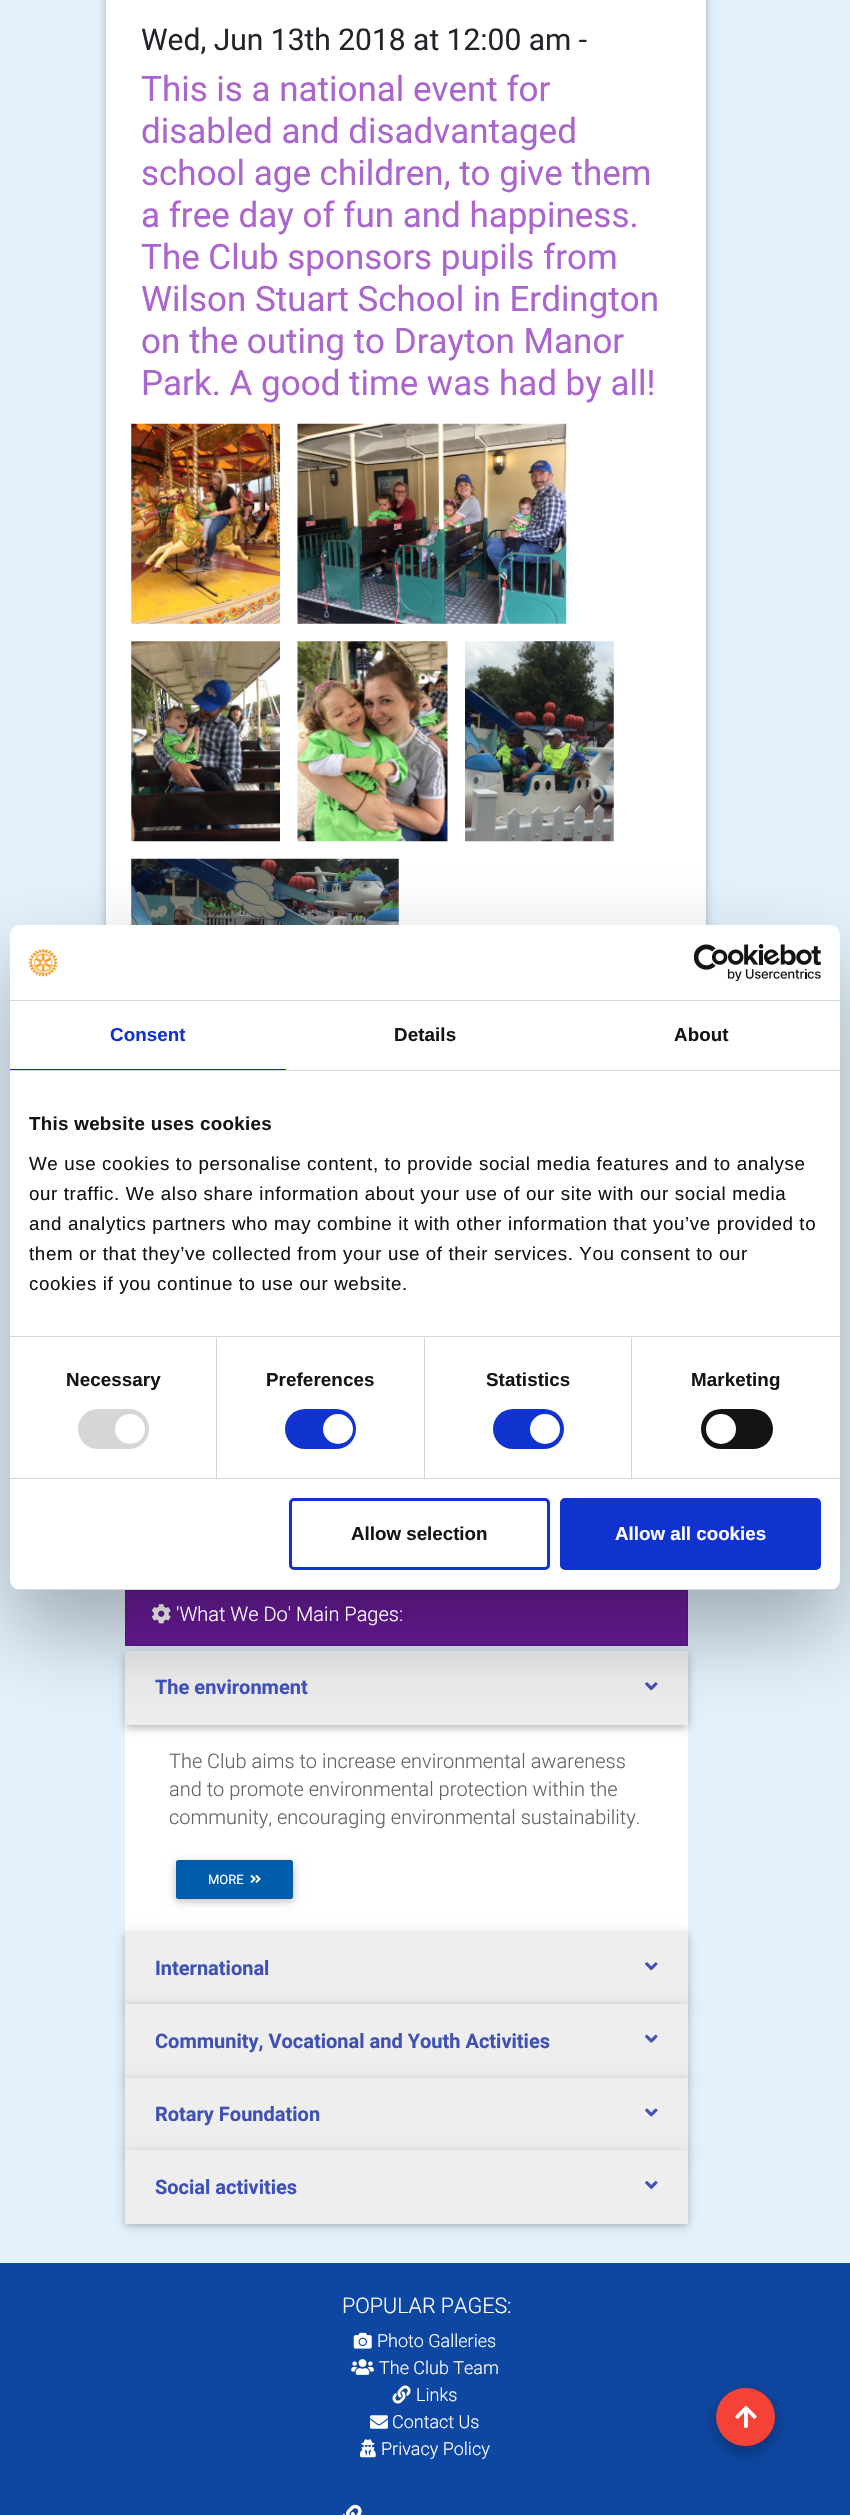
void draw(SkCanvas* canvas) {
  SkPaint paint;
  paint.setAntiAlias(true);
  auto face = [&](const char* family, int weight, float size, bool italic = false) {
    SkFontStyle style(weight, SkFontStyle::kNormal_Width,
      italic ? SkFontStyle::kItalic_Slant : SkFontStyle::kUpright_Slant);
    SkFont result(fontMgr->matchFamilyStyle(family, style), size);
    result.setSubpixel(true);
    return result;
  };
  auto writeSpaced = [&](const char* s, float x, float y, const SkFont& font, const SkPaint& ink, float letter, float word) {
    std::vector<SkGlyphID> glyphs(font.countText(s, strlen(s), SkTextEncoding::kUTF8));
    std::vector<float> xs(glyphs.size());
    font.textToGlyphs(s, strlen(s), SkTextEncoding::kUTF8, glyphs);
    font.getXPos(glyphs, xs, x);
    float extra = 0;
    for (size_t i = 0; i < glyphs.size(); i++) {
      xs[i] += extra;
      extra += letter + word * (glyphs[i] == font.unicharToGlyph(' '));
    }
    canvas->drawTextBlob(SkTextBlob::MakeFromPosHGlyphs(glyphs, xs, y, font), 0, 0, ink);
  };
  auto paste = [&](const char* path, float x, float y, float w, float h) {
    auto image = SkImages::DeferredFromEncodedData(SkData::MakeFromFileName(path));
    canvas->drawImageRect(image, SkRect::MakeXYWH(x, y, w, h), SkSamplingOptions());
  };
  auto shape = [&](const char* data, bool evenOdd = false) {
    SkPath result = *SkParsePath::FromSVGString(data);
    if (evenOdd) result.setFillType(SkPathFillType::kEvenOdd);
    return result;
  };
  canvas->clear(0xffe3f2fd);
  paint.setColor(0x1f000000);
  paint.setMaskFilter(SkMaskFilter::MakeBlur(kNormal_SkBlurStyle, 6));
  canvas->drawRoundRect(SkRect::MakeXYWH(106, -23, 600, 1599), 5, 5, paint);
  paint.setMaskFilter(nullptr);
  paint.setColor(0x29000000);
  paint.setMaskFilter(SkMaskFilter::MakeBlur(kNormal_SkBlurStyle, 3));
  canvas->drawRoundRect(SkRect::MakeXYWH(106, -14, 600, 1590), 5, 5, paint);
  paint.setMaskFilter(nullptr);
  paint.setColor(0xffffffff);
  canvas->drawRect(SkRect::MakeXYWH(106, 0, 600, 925), paint);
  paste("img/1.png", 131, 423, 149, 201);
  paste("img/2.png", 297, 423, 270, 201);
  paste("img/3.png", 131, 641, 149, 201);
  paste("img/4.png", 297, 641, 151, 201);
  paste("img/5.png", 465, 641, 149, 201);
  paste("img/6.png", 131, 858, 268, 67);
  paint.setColor(0xff6a1b9a);
  canvas->drawRect(SkRect::MakeXYWH(125, 1590, 563, 56), paint);
  paint.setStroke(true);
  paint.setStrokeWidth(1);
  paint.setColor(0x1f000000);
  canvas->drawRect(SkRect::MakeXYWH(125.5f, 1584.5f, 562, 61), paint);
  paste("img/7.png", 152, 1604, 19, 20);
  paint.setStroke(false);
  paint.setColor(0xffffffff);
  canvas->drawRect(SkRect::MakeXYWH(125, 1651, 563, 280), paint);
  paint.setColor(0x1f000000);
  paint.setMaskFilter(SkMaskFilter::MakeBlur(kNormal_SkBlurStyle, 6));
  canvas->drawRoundRect(SkRect::MakeXYWH(125, 1654, 563, 74), 4, 4, paint);
  paint.setMaskFilter(nullptr);
  paint.setColor(0x29000000);
  paint.setMaskFilter(SkMaskFilter::MakeBlur(kNormal_SkBlurStyle, 3));
  canvas->drawRoundRect(SkRect::MakeXYWH(125, 1654, 563, 74), 4, 4, paint);
  paint.setMaskFilter(nullptr);
  paint.setColor(0xffeeeeee);
  canvas->drawPath(shape("M129 1651H684C686 1651 688 1653 688 1655V1725H125V1655C125 1653 127 1651 129 1651Z"), paint);
  paste("img/8.png", 645, 1682, 13, 9);
  paint.setColor(0x1f000000);
  paint.setMaskFilter(SkMaskFilter::MakeBlur(kNormal_SkBlurStyle, 6));
  canvas->drawRoundRect(SkRect::MakeXYWH(176, 1863, 117, 38), 2.5f, 2.5f, paint);
  paint.setMaskFilter(nullptr);
  paint.setColor(0x29000000);
  paint.setMaskFilter(SkMaskFilter::MakeBlur(kNormal_SkBlurStyle, 3));
  canvas->drawRoundRect(SkRect::MakeXYWH(176, 1863, 117, 38), 2.5f, 2.5f, paint);
  paint.setMaskFilter(nullptr);
  paint.setColor(0xff005daa);
  canvas->drawRoundRect(SkRect::MakeXYWH(176, 1860, 117, 39), 2.5f, 2.5f, paint);
  paste("img/9.png", 250, 1875, 11, 8);
  paint.setColor(0x1f000000);
  paint.setMaskFilter(SkMaskFilter::MakeBlur(kNormal_SkBlurStyle, 6));
  canvas->drawRect(SkRect::MakeXYWH(125, 1934, 563, 74), paint);
  paint.setMaskFilter(nullptr);
  paint.setColor(0x29000000);
  paint.setMaskFilter(SkMaskFilter::MakeBlur(kNormal_SkBlurStyle, 3));
  canvas->drawRect(SkRect::MakeXYWH(125, 1934, 563, 74), paint);
  paint.setMaskFilter(nullptr);
  paint.setColor(0xffeeeeee);
  canvas->drawRect(SkRect::MakeXYWH(125, 1931, 563, 73), paint);
  paste("img/8.png", 645, 1962, 13, 9);
  paint.setColor(0x1f000000);
  paint.setMaskFilter(SkMaskFilter::MakeBlur(kNormal_SkBlurStyle, 6));
  canvas->drawRect(SkRect::MakeXYWH(125, 2006, 563, 75), paint);
  paint.setMaskFilter(nullptr);
  paint.setColor(0x29000000);
  paint.setMaskFilter(SkMaskFilter::MakeBlur(kNormal_SkBlurStyle, 3));
  canvas->drawRect(SkRect::MakeXYWH(125, 2006, 563, 75), paint);
  paint.setMaskFilter(nullptr);
  paint.setColor(0xffeeeeee);
  canvas->drawRect(SkRect::MakeXYWH(125, 2004, 563, 74), paint);
  paste("img/10.png", 645, 2034, 13, 9);
  paint.setColor(0x1f000000);
  paint.setMaskFilter(SkMaskFilter::MakeBlur(kNormal_SkBlurStyle, 6));
  canvas->drawRect(SkRect::MakeXYWH(125, 2080, 563, 74), paint);
  paint.setMaskFilter(nullptr);
  paint.setColor(0x29000000);
  paint.setMaskFilter(SkMaskFilter::MakeBlur(kNormal_SkBlurStyle, 3));
  canvas->drawRect(SkRect::MakeXYWH(125, 2080, 563, 74), paint);
  paint.setMaskFilter(nullptr);
  paint.setColor(0xffeeeeee);
  canvas->drawRect(SkRect::MakeXYWH(125, 2078, 563, 72), paint);
  paste("img/11.png", 645, 2108, 13, 9);
  paint.setColor(0x1f000000);
  paint.setMaskFilter(SkMaskFilter::MakeBlur(kNormal_SkBlurStyle, 6));
  canvas->drawRect(SkRect::MakeXYWH(125, 2153, 563, 73), paint);
  paint.setMaskFilter(nullptr);
  paint.setColor(0x29000000);
  paint.setMaskFilter(SkMaskFilter::MakeBlur(kNormal_SkBlurStyle, 3));
  canvas->drawRect(SkRect::MakeXYWH(125, 2153, 563, 73), paint);
  paint.setMaskFilter(nullptr);
  paint.setColor(0xffeeeeee);
  canvas->drawRect(SkRect::MakeXYWH(125, 2150, 563, 74), paint);
  paste("img/12.png", 645, 2181, 13, 8);
  paint.setColor(0x4d000000);
  paint.setMaskFilter(SkMaskFilter::MakeBlur(kNormal_SkBlurStyle, 42.5f));
  canvas->drawRoundRect(SkRect::MakeXYWH(10, 965, 830, 665), 10, 10, paint);
  paint.setMaskFilter(nullptr);
  paint.setColor(0xffffffff);
  canvas->drawRoundRect(SkRect::MakeXYWH(10, 925, 830, 665), 10, 10, paint);
  paint.setColor(0xffd6d6d6);
  canvas->drawRect(SkRect::MakeXYWH(10, 1000, 830, 1), paint);
  paste("img/13.png", 28, 949, 30, 28);
  paste("img/14.png", 694, 944, 127, 37);
  {
    const struct { float x, y, w, h; SkColor color; } items[] = {
      {10, 1070, 830, 1, 0xffd6d6d6},
      {10, 1069, 276, 1, 0xff1032cf},
      {10, 1336, 830, 1, 0xffd6d6d6},
      {10, 1478, 830, 1, 0xffd6d6d6},
      {216, 1338, 1, 140, 0xffd6d6d6},
    };
    for (auto [x, y, w, h, color] : items) {
      paint.setColor(color);
      canvas->drawRect(SkRect::MakeXYWH(x, y, w, h), paint);
    }
  }
  canvas->drawRoundRect(SkRect::MakeXYWH(78, 1409, 71, 40), 20, 20, paint);
  paint.setColor(0xffffffff);
  canvas->drawCircle(130, 1429, 15, paint);
  paint.setColor(0xffd6d6d6);
  canvas->drawRect(SkRect::MakeXYWH(424, 1338, 1, 140), paint);
  paint.setColor(0xff1032cf);
  canvas->drawRoundRect(SkRect::MakeXYWH(285, 1409, 71, 40), 20, 20, paint);
  paint.setColor(0xffffffff);
  canvas->drawCircle(338, 1429, 15, paint);
  paint.setColor(0xffd6d6d6);
  canvas->drawRect(SkRect::MakeXYWH(631, 1338, 1, 140), paint);
  paint.setColor(0xff1032cf);
  canvas->drawRoundRect(SkRect::MakeXYWH(493, 1409, 71, 40), 20, 20, paint);
  paint.setColor(0xffffffff);
  canvas->drawCircle(545, 1429, 15, paint);
  paint.setColor(0xff141414);
  canvas->drawRoundRect(SkRect::MakeXYWH(701, 1409, 72, 40), 20, 20, paint);
  paint.setColor(0xffffffff);
  canvas->drawCircle(721, 1429, 15, paint);
  canvas->save();
  canvas->clipPath(shape("M20 925H830C835.5 925 840 929.5 840 935V1580C840 1585.5 835.5 1590 830 1590H20C14.5 1590 10 1585.5 10 1580V935C10 929.5 14.5 925 20 925Z"), true);
  paint.setColor(0xffd6d6d6);
  canvas->drawRect(SkRect::MakeXYWH(10, 1589, 830, 1), paint);
  canvas->restore();
  paint.setStroke(true);
  paint.setStrokeWidth(3);
  paint.setColor(0xff1032cf);
  canvas->drawRoundRect(SkRect::MakeXYWH(290.5f, 1499.5f, 258, 69), 3.5f, 3.5f, paint);
  paint.setStroke(false);
  canvas->drawRoundRect(SkRect::MakeXYWH(561.5f, 1499.5f, 258, 69), 3.5f, 3.5f, paint);
  paint.setStroke(true);
  canvas->drawRoundRect(SkRect::MakeXYWH(561.5f, 1499.5f, 258, 69), 3.5f, 3.5f, paint);
  paint.setStroke(false);
  paint.setColor(0xff0d47a1);
  canvas->drawRect(SkRect::MakeXYWH(0, 2263, 850, 252), paint);
  paste("img/15.png", 353, 2332, 19, 17);
  paste("img/16.png", 351, 2359, 23, 16);
  paste("img/17.png", 392, 2385, 19, 19);
  paste("img/18.png", 370, 2415, 18, 14);
  paste("img/19.png", 360, 2439, 16, 19);
  paste("img/20.png", 342, 2504, 20, 11);
  paint.setColor(0x26000000);
  paint.setMaskFilter(SkMaskFilter::MakeBlur(kNormal_SkBlurStyle, 9.5f));
  canvas->drawRoundRect(SkRect::MakeXYWH(716, 2393, 59, 58), 29, 29, paint);
  paint.setMaskFilter(nullptr);
  paint.setColor(0x2e000000);
  paint.setMaskFilter(SkMaskFilter::MakeBlur(kNormal_SkBlurStyle, 7));
  canvas->drawRoundRect(SkRect::MakeXYWH(716, 2394, 59, 59), 29.5f, 29.5f, paint);
  paint.setMaskFilter(nullptr);
  paint.setColor(0xfff44336);
  canvas->drawRoundRect(SkRect::MakeXYWH(716, 2388, 59, 58), 29, 29, paint);
  paste("img/21.png", 735, 2406, 22, 22);
  auto f0 = face("Roboto", 400, 30);
  paint.setColor(0xff212529);
  canvas->drawString("Wed, Jun 13th 2018 at 12:00 am -", 141, 50, f0, paint);
  auto f1 = face("Roboto", 400, 35);
  paint.setColor(0xffaa66cc);
  {
    const struct { const char* s; float x, y; } items[] = {
      {"This is a national event for", 141, 101},
      {"disabled and disadvantaged", 141, 143},
      {"school age children, to give them", 141, 185},
      {"a free day of fun and happiness.", 141, 227},
      {"The Club sponsors pupils from", 141, 269},
      {"Wilson Stuart School in Erdington", 141, 311},
      {"on the outing to Drayton Manor", 141, 353},
      {"Park. A good time was had by all!", 141, 395},
    };
    for (auto [s, x, y] : items) {
      canvas->drawString(s, x, y, f1, paint);
    }
  }
  auto f2 = face("Roboto", 300, 20);
  paint.setColor(0xffffffff);
  canvas->drawString("'What We Do' Main Pages:", 176, 1621, f2, paint);
  auto f3 = face("Roboto", 700, 20);
  paint.setColor(0xff3f51b5);
  canvas->drawString("The environment", 155, 1694, f3, paint);
  paint.setColor(0xff626262);
  {
    const struct { const char* s; float x, y; } items[] = {
      {"The Club aims to increase environmental awareness", 169, 1768},
      {"and to promote environmental protection within the", 169, 1796},
      {"community, encouraging environmental sustainability.", 169, 1824},
    };
    for (auto [s, x, y] : items) {
      canvas->drawString(s, x, y, f2, paint);
    }
  }
  auto f4 = face("Roboto", 400, 13);
  paint.setColor(0xffffffff);
  canvas->drawString("MORE", 208, 1884, f4, paint);
  paint.setColor(0xff3f51b5);
  {
    const struct { const char* s; float x, y; } items[] = {
      {"International", 155, 1975},
      {"Community, Vocational and Youth Activities", 155, 2048},
      {"Rotary Foundation", 155, 2121},
      {"Social activities", 155, 2194},
    };
    for (auto [s, x, y] : items) {
      canvas->drawString(s, x, y, f3, paint);
    }
  }
  auto f5 = face("Liberation Sans", 700, 18.75f);
  paint.setColor(0xff1032cf);
  writeSpaced("Consent", 110, 1041, f5, paint, 0.1f, 0);
  paint.setColor(0xff141414);
  writeSpaced("Details", 394, 1041, f5, paint, 0.1f, 0);
  writeSpaced("About", 674, 1041, f5, paint, 0.1f, 0);
  writeSpaced("This website uses cookies", 29, 1130, f5, paint, 0.3f, 0);
  auto f6 = face("Liberation Sans", 400, 18.75f);
  {
    const struct { const char* s; float x, y; } items[] = {
      {"We use cookies to personalise content, to provide social media features and to analyse", 29, 1170},
      {"our traffic. We also share information about your use of our site with our social media", 29, 1200},
      {"and analytics partners who may combine it with other information that you’ve provided to", 29, 1230},
      {"them or that they’ve collected from your use of their services. You consent to our", 29, 1260},
      {"cookies if you continue to use our website.", 29, 1290},
    };
    for (auto [s, x, y] : items) {
      writeSpaced(s, x, y, f6, paint, 0.62f, 0);
    }
  }
  {
    const struct { const char* s; float x, y; } items[] = {
      {"Necessary", 66, 1386},
      {"Preferences", 266, 1386},
      {"Statistics", 486, 1386},
      {"Marketing", 691, 1386},
    };
    for (auto [s, x, y] : items) {
      writeSpaced(s, x, y, f5, paint, 0.1f, 0);
    }
  }
  canvas->drawString("Allow selection", 351, 1540, f5, paint);
  paint.setColor(0xffffffff);
  canvas->drawString("Allow all cookies", 615, 1540, f5, paint);
  auto f7 = face("Roboto", 300, 21.5f);
  canvas->drawString("POPULAR PAGES:", 342, 2313, f7, paint);
  auto f8 = face("Roboto", 300, 18);
  {
    const struct { const char* s; float x, y; } items[] = {
      {"Photo Galleries", 377, 2347},
      {"The Club Team", 379, 2374},
      {"Links", 416, 2401},
      {"Contact Us", 392, 2428},
      {"Privacy Policy", 381, 2455},
    };
    for (auto [s, x, y] : items) {
      canvas->drawString(s, x, y, f8, paint);
    }
  }
}
